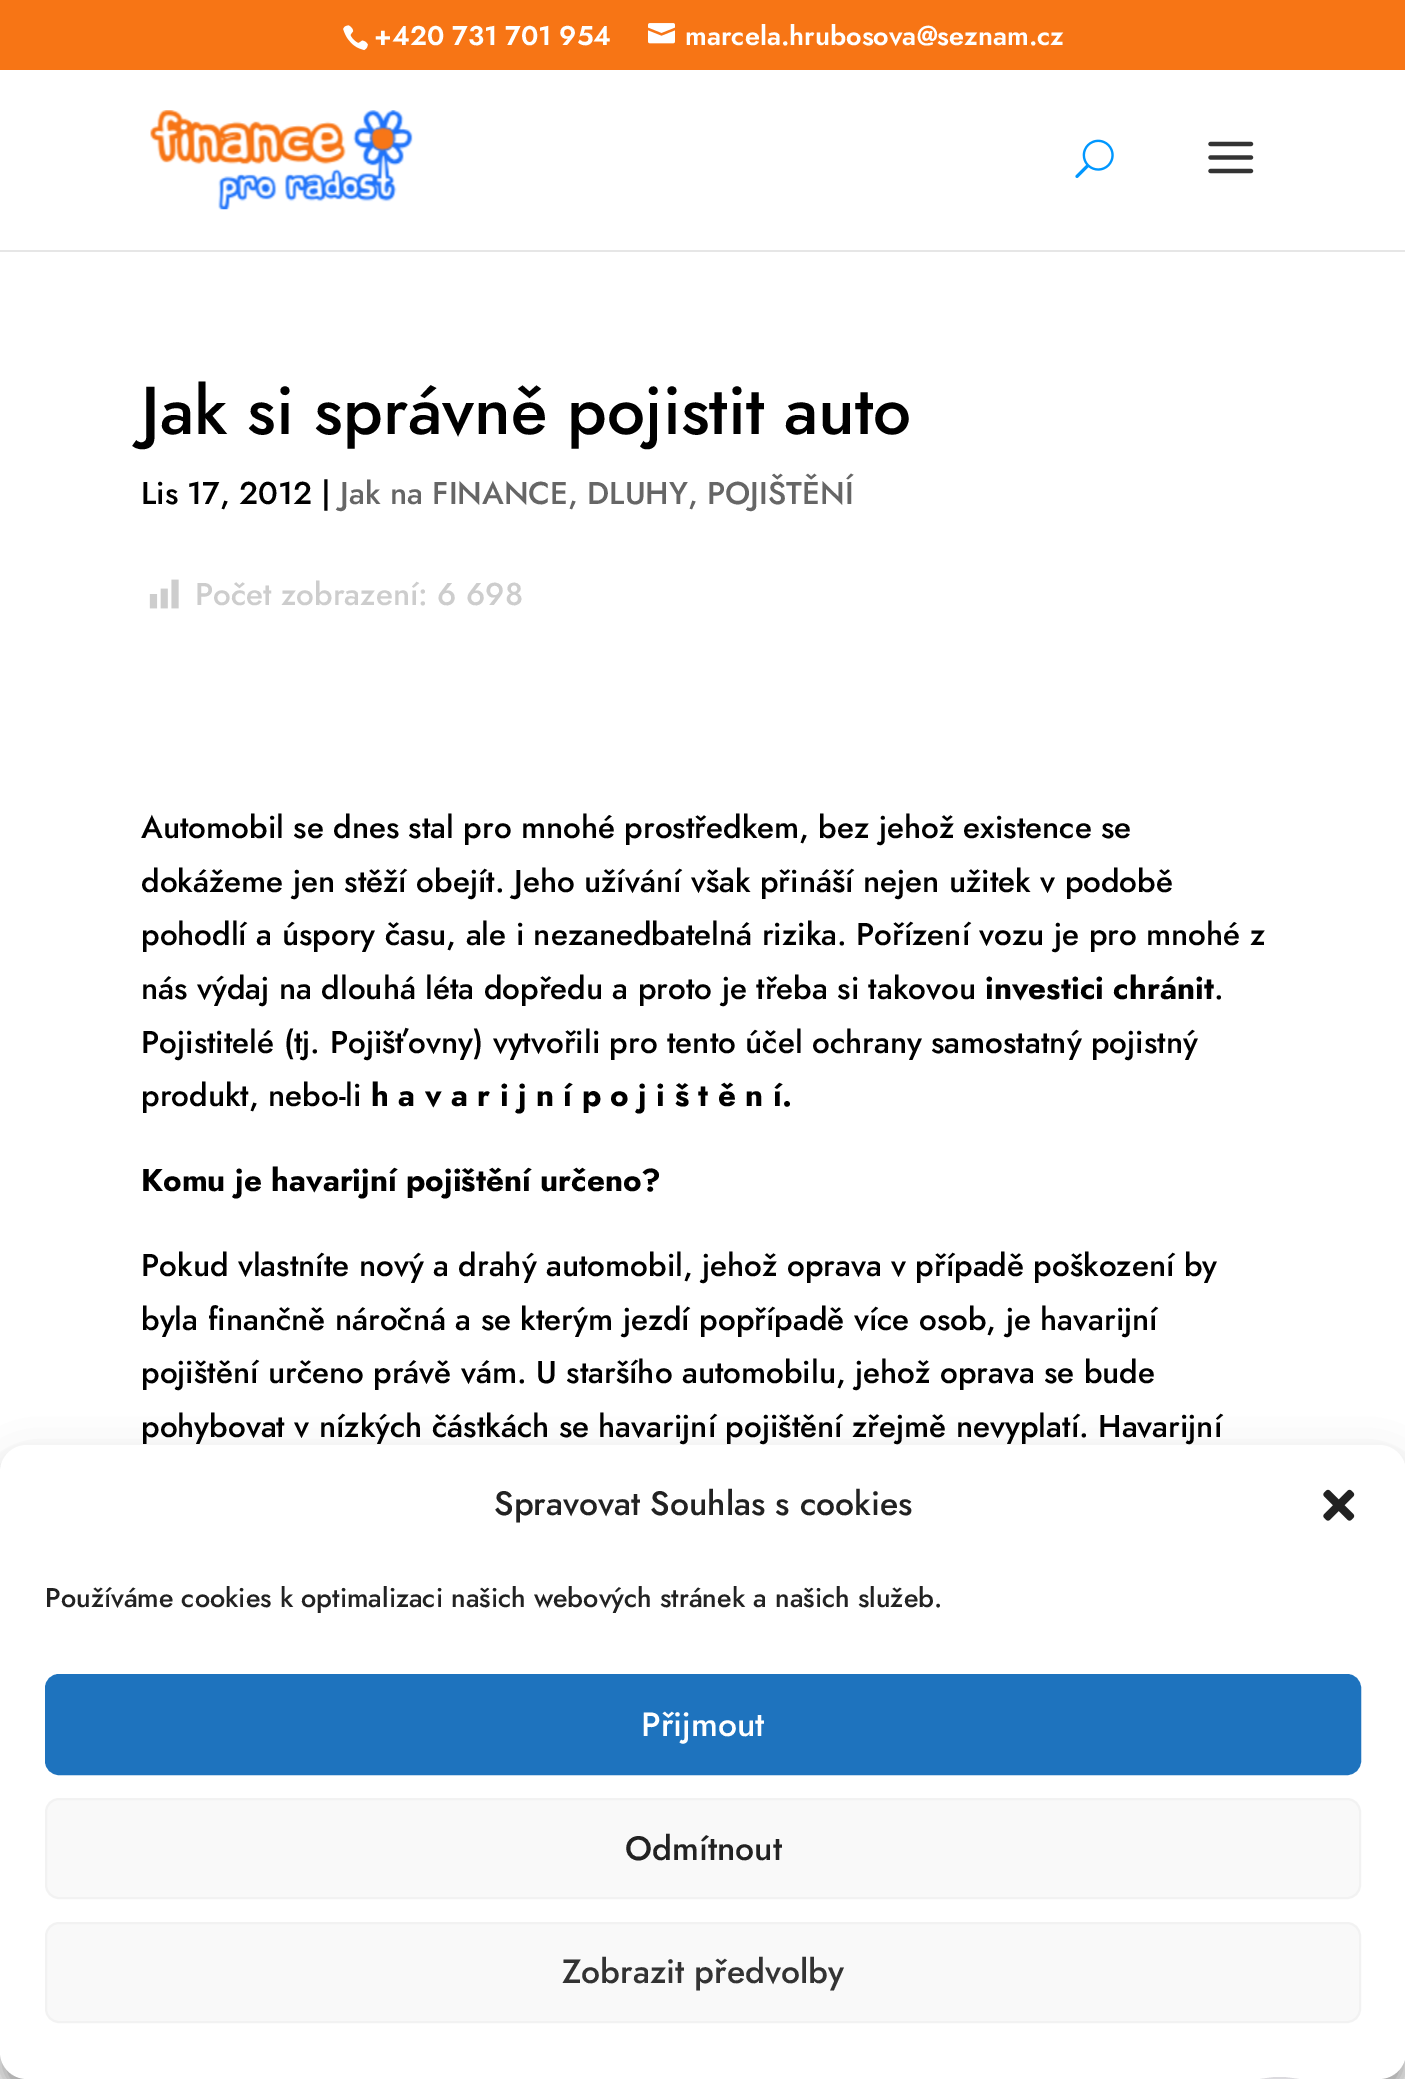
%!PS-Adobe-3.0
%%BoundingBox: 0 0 1405 2079
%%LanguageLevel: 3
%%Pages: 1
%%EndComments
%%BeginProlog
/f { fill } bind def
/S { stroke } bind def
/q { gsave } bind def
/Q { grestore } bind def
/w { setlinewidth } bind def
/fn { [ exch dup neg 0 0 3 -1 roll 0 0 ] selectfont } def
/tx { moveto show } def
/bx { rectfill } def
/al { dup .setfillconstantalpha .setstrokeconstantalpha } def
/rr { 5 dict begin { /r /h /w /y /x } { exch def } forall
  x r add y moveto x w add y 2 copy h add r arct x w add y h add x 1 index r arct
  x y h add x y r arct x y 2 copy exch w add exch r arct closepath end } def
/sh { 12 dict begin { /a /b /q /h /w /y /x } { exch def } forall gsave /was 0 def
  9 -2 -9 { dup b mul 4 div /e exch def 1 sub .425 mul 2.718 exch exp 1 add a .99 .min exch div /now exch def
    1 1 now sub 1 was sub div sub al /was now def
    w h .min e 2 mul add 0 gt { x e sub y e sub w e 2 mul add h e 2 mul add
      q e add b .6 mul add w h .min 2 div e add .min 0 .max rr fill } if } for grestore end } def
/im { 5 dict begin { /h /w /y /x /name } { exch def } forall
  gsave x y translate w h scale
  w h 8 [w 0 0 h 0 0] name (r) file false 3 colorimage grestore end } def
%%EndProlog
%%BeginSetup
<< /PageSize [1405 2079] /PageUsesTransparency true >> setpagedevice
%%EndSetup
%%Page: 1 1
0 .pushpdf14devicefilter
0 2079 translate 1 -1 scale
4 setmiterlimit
1 setgray
0 0 1405 2079 bx
0.969 0.459 0.082 setrgbcolor
0 0 1405 70 bx
(image0.raw) 343 25 25 26 im
/Jost-SemiBold 27 fn
1 setgray
(+420 731 701 954) 374 45 tx
(image1.raw) 648 23 27 21 im
(marcela.hrubosova@seznam.cz) 685 45 tx
0.902 setgray
0 250 1405 2 bx
(image2.raw) 150 110 263 100 im
(image3.raw) 1075 139 39 39 im
(image4.raw) 1208 141 46 33 im
/Jost-Medium 67.5 fn
0 setgray
(Jak si správně pojistit auto) 141 434 tx
/Jost-Medium 31.5 fn
(Lis 17, 2012 |) 141 504 tx
0.4 setgray
(Jak na FINANCE, DLUHY, POJIŠTĚNÍ) 340 504 tx
(image5.raw) 149 579 30 30 im
0.804 setgray
(Počet zobrazení: 6 698) 195 605 tx
0 setgray
(Automobil se dnes stal pro mnohé prostředkem, bez jehož existence se) 141 838 tx
(dokážeme jen stěží obejít. Jeho užívání však přináší nejen užitek v podobě) 141 892 tx
(pohodlí a úspory času, ale i nezanedbatelná rizika. Pořízení vozu je pro mnohé z) 141 945 tx
(nás výdaj na dlouhá léta dopředu a proto je třeba si takovou) 141 999 tx
/Jost-Bold 31.5 fn
(investici chránit) 985 999 tx
/Jost-Medium 31.5 fn
(.) 1214 999 tx
(Pojistitelé \(tj. Pojišťovny\) vytvořili pro tento účel ochrany samostatný pojistný) 141 1053 tx
(produkt, nebo-li) 141 1106 tx
/Jost-Bold 31.5 fn
(h a v a r i j n í p o j i š t ě n í.) 371 1106 tx
(Komu je havarijní pojištění určeno?) 141 1191 tx
/Jost-Medium 31.5 fn
(Pokud vlastníte nový a drahý automobil, jehož oprava v případě poškození by) 141 1276 tx
(byla finančně náročná a se kterým jezdí popřípadě více osob, je havarijní) 141 1330 tx
(pojištění určeno právě vám. U staršího automobilu, jehož oprava se bude) 141 1383 tx
(pohybovat v nízkých částkách se havarijní pojištění zřejmě nevyplatí. Havarijní) 141 1437 tx
0 1458 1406 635 27 7 0.23 sh
0 1467 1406 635 27 22.5 0.19 sh
1 setgray
0 1445 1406 634 27 rr f
/Jost-Medium 33.75 fn
0.133 setgray
(Spravovat Souhlas s cookies) 494 1515 tx
(image6.raw) 1323 1489 32 32 im
/Jost-Medium 27 fn
(Používáme cookies k optimalizaci našich webových stránek a našich služeb.) 45 1607 tx
0.118 0.451 0.745 setrgbcolor
46 1675 1314 99 13 rr q f Q
2 w
S
/Jost-Medium 33.75 fn
1 setgray
(Přijmout) 641 1736 tx
0.976 setgray
46 1799 1314 99 13 rr q f Q
0.949 setgray
S
0.133 setgray
(Odmítnout) 625 1860 tx
0.976 setgray
46 1923 1314 99 13 rr q f Q
0.949 setgray
S
0.2 setgray
(Zobrazit předvolby) 562 1983 tx
0.859 0.855 0.871 setrgbcolor
1187 2078 185 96 92.5 rr S
.poppdf14devicefilter showpage
%%EOF
